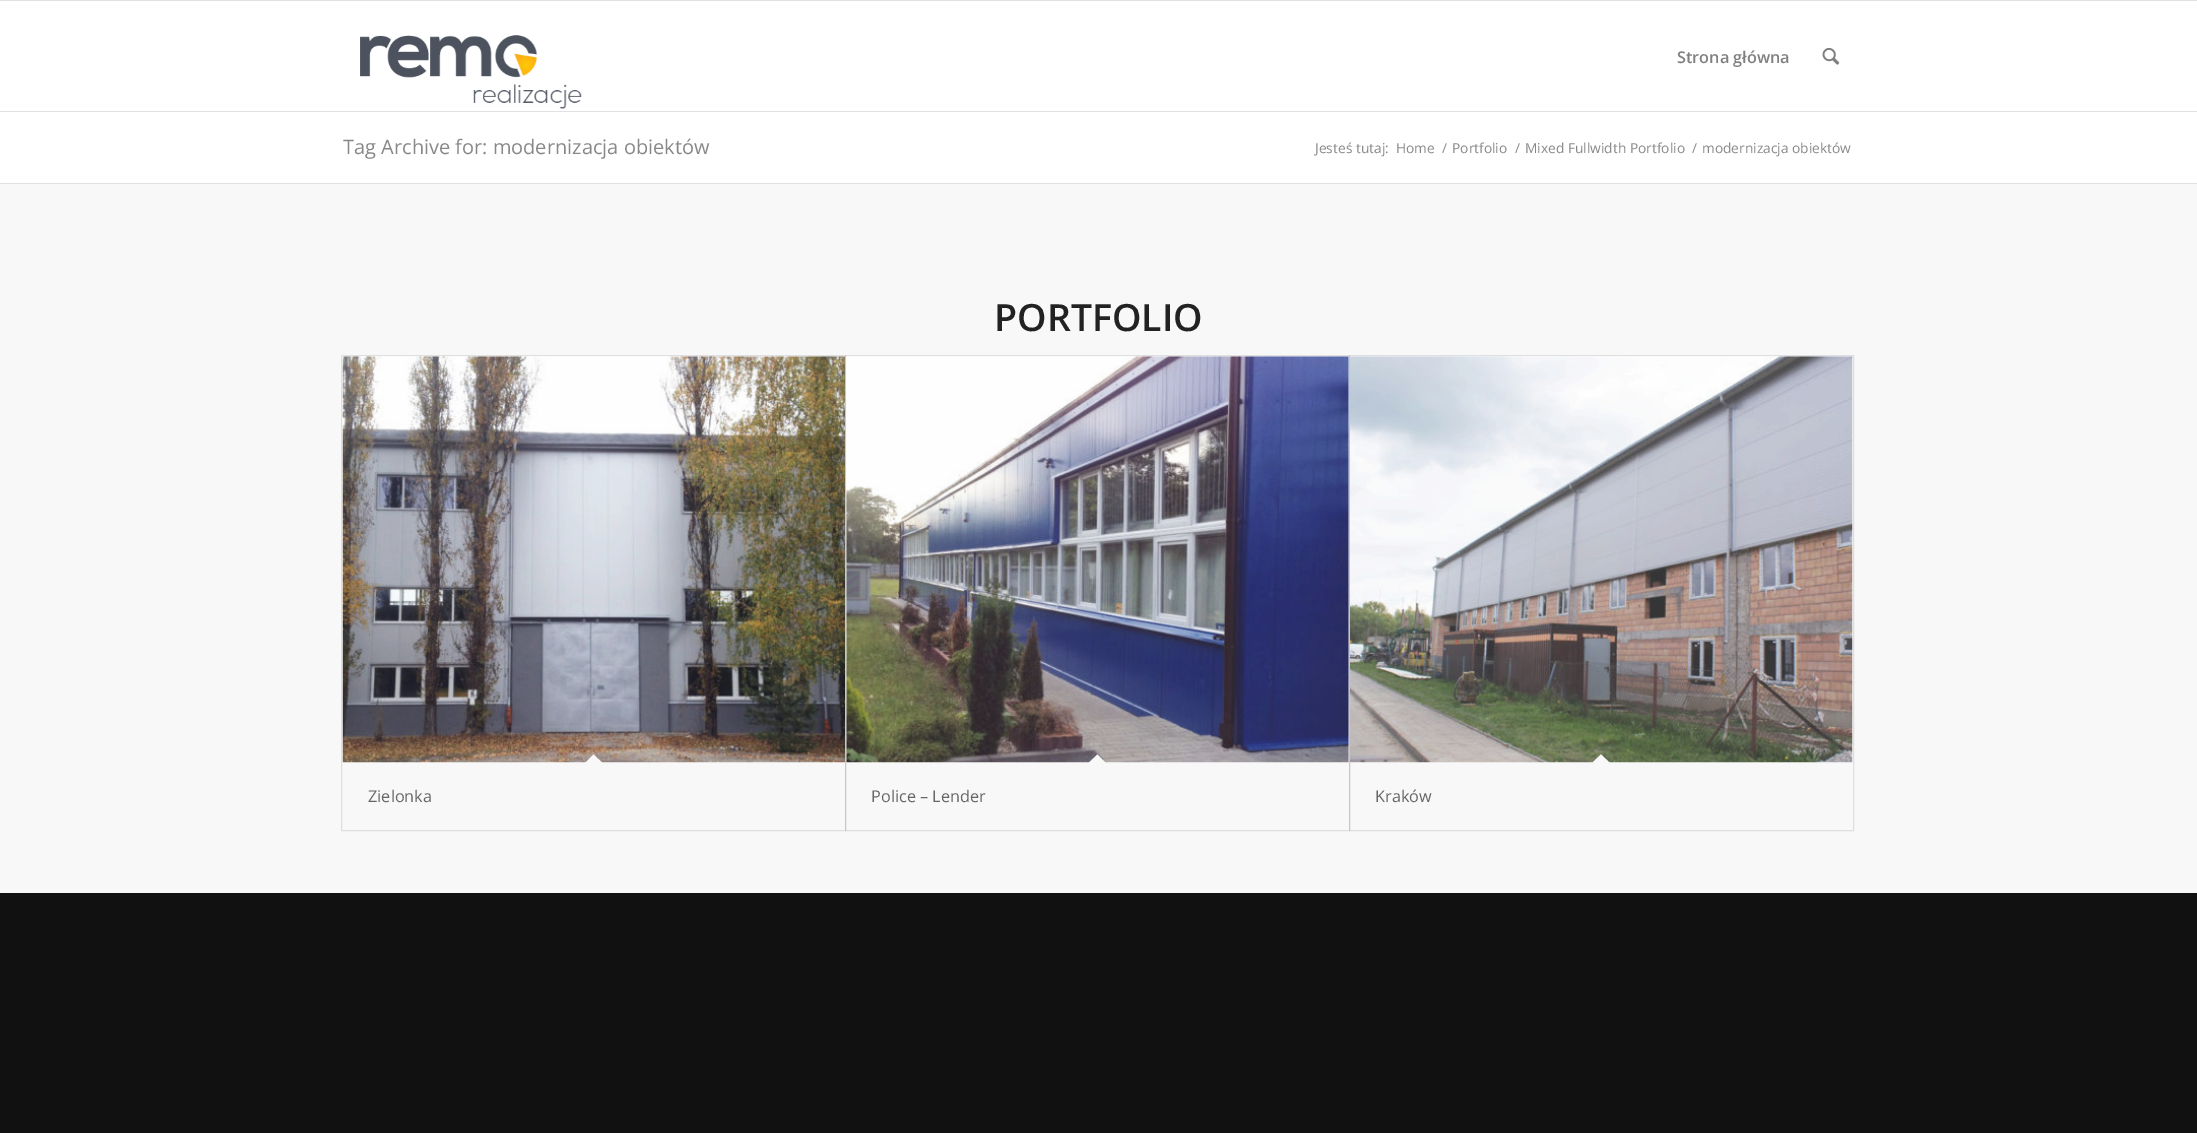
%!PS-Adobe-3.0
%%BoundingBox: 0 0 2197 1133
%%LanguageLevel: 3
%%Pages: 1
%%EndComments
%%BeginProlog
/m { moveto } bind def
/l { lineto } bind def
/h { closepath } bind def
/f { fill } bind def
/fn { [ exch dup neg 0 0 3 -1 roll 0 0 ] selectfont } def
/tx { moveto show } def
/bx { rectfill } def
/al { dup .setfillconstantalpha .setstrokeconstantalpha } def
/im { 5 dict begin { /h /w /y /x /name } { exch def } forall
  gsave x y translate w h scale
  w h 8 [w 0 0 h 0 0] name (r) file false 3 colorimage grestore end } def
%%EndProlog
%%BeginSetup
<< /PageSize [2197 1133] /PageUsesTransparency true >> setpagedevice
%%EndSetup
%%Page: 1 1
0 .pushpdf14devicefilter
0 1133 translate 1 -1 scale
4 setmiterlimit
0.067 setgray
0 0 2197 1133 bx
0.882 setgray
0 0 2197 1 bx
1 setgray
0 1 2197 182 bx
0.882 setgray
0 111 2197 1 bx
(image0.raw) 360 35 222 74 im
/OpenSans-SemiBold 16.25 fn
0.502 setgray
(Strona główna) 1677 63 tx
(image1.raw) 1822 47 18 18 im
/OpenSans-Regular 20 fn
0.533 setgray
(Tag Archive for: modernizacja obiektów) 343 154 tx
/OpenSans-Regular 13.75 fn
(Jesteś tutaj:) 1315 153 tx
(Home) 1396 153 tx
(/) 1442 153 tx
(Portfolio) 1452 153 tx
(/) 1515 153 tx
(Mixed Fullwidth Portfolio) 1525 153 tx
(/) 1692 153 tx
(modernizacja obiektów) 1702 153 tx
0.973 setgray
0 184 2197 709 bx
0.882 setgray
0 183 2197 1 bx
/OpenSans-SemiBold 37.5 fn
0.133 setgray
(PORTFOLIO) 994 331 tx
0.875 setgray
341.5 355.5 504 475 rectstroke
(image2.raw) 342 356 503 407 im
0.973 setgray
593.5 754.5 m 602.5 763 l 593.5 772 l 585 763 l h f
/OpenSans-Regular 16.25 fn
0.4 setgray
(Zielonka) 368 802 tx
0.1 al
0 setgray
845.5 355.5 504 475 rectstroke
1 al
(image3.raw) 846 356 503 407 im
0.973 setgray
1097.5 754.5 m 1106 763 l 1097.5 772 l 1088.5 763 l h f
0.4 setgray
(Police – Lender) 871 802 tx
0.1 al
0 setgray
1349.5 355.5 504 475 rectstroke
1 al
(image4.raw) 1350 356 503 407 im
0.973 setgray
1601 754.5 m 1610 763 l 1601 772 l 1592 763 l h f
0.4 setgray
(Kraków) 1375 802 tx
.poppdf14devicefilter showpage
%%EOF
